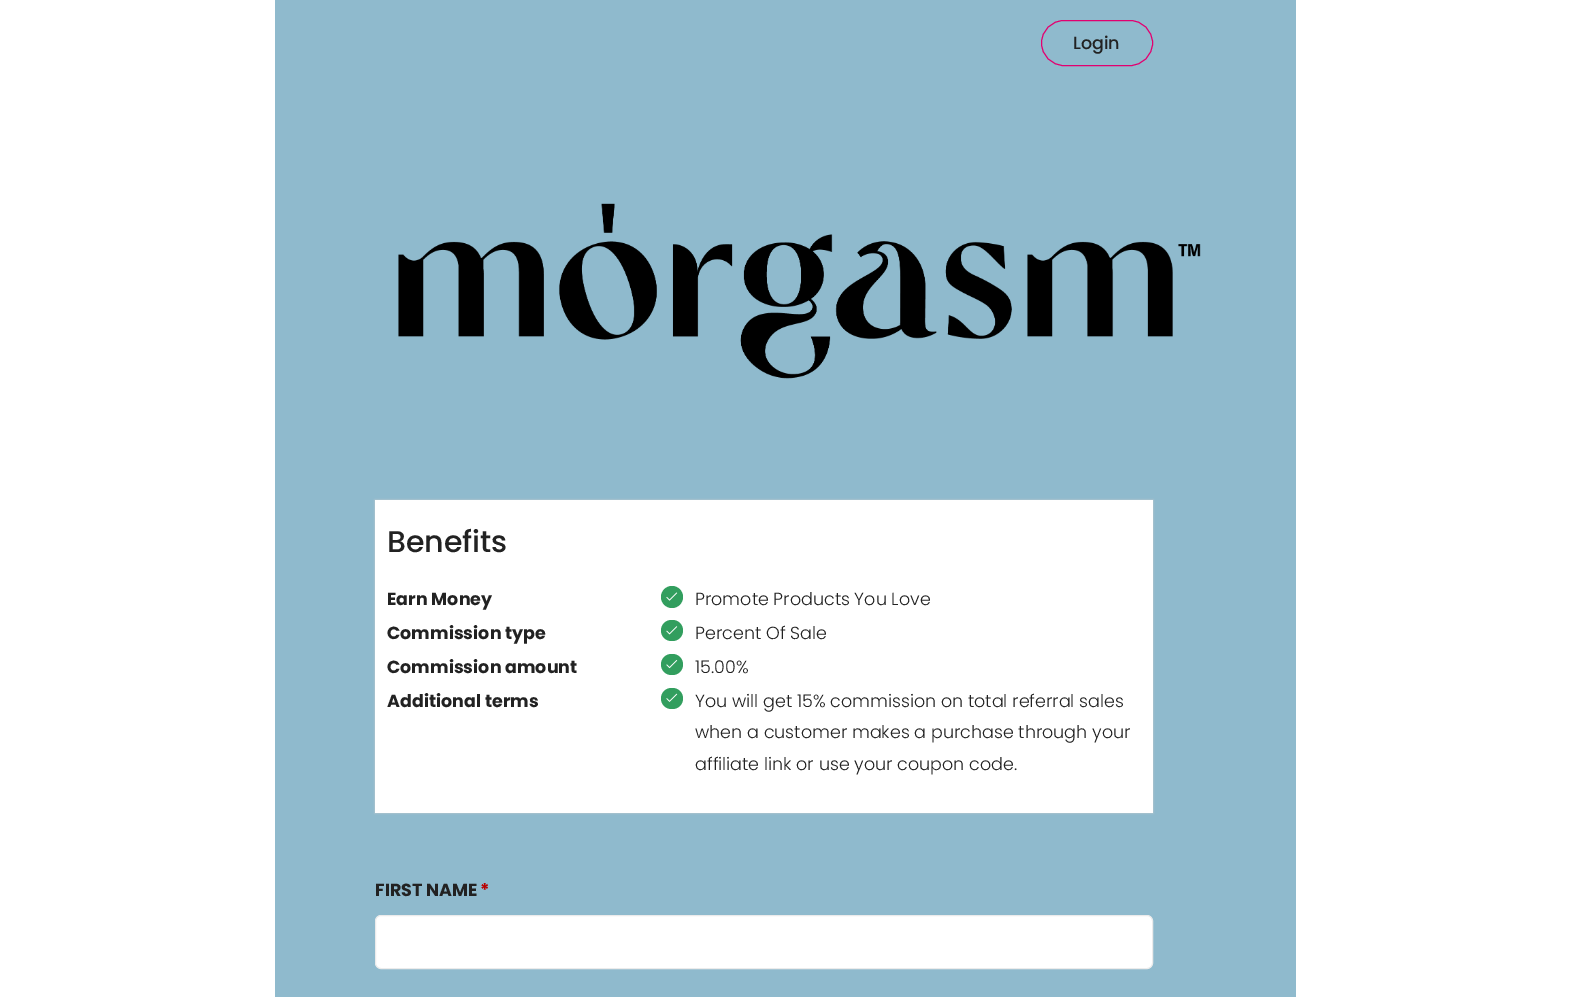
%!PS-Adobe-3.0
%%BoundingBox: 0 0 1571 997
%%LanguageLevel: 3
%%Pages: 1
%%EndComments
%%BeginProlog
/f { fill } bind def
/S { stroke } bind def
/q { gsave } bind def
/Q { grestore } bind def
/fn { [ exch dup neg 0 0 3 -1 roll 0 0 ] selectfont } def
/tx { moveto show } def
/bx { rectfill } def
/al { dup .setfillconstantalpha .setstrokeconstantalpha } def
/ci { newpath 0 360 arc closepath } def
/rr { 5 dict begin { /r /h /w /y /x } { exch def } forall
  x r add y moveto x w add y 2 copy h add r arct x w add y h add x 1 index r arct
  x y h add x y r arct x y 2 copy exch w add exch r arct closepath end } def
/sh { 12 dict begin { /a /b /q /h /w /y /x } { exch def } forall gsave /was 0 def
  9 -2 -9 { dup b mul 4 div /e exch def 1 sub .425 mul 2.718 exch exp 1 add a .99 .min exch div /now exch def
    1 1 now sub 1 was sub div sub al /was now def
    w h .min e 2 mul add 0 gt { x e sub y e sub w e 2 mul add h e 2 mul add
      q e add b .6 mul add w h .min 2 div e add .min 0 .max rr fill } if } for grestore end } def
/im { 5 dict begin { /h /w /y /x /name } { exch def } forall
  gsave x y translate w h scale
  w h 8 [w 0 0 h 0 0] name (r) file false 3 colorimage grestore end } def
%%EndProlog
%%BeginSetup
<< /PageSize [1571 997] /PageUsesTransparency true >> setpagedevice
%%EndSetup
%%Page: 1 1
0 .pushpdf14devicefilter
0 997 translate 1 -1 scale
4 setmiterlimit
1 setgray
0 0 1571 997 bx
0.561 0.729 0.804 setrgbcolor
275 0 1021 997 bx
0.886 0 0.439 setrgbcolor
1041.5 20.5 111 45 22.5 rr S
/Poppins-Medium 17.5 fn
0.133 setgray
(Login) 1073 49 tx
(image0.raw) 398 203 803 176 im
0.8 setgray
375 500 778 313 0 1 1 sh
1 setgray
375 500 778 313 bx
/Poppins-Medium 30 fn
0.133 setgray
(Benefits) 387 552 tx
/Poppins-Bold 17.5 fn
(Earn Money) 387 605 tx
0.196 0.62 0.369 setrgbcolor
672 597 11 ci f
(image1.raw) 666 592 12 9 im
/Poppins-Light 17.5 fn
0.133 setgray
(Promote Products You Love) 695 605 tx
/Poppins-Bold 17.5 fn
(Commission type) 387 639 tx
0.196 0.62 0.369 setrgbcolor
661 620 22 21 10.5 rr f
(image2.raw) 666 626 12 9 im
/Poppins-Light 17.5 fn
0.133 setgray
(Percent Of Sale) 695 639 tx
/Poppins-Bold 17.5 fn
(Commission amount) 387 673 tx
0.196 0.62 0.369 setrgbcolor
661 654 22 21 10.5 rr f
(image3.raw) 666 660 12 9 im
/Poppins-Light 17.5 fn
0.133 setgray
(15.00%) 695 673 tx
/Poppins-Bold 17.5 fn
(Additional terms) 387 707 tx
0.196 0.62 0.369 setrgbcolor
661 688 22 21 10.5 rr f
(image4.raw) 666 693 12 9 im
/Poppins-Light 17.5 fn
0.133 setgray
(You will get 15% commission on total referral sales) 695 707 tx
(when a customer makes a purchase through your) 695 738 tx
(affiliate link or use your coupon code.) 695 770 tx
/Poppins-Bold 17.5 fn
(FIRST NAME) 375 896 tx
0.725 0 0 setrgbcolor
(*) 480 896 tx
1 setgray
375.5 915.5 777 53 5.5 rr q f Q
0.922 setgray
S
.poppdf14devicefilter showpage
%%EOF
